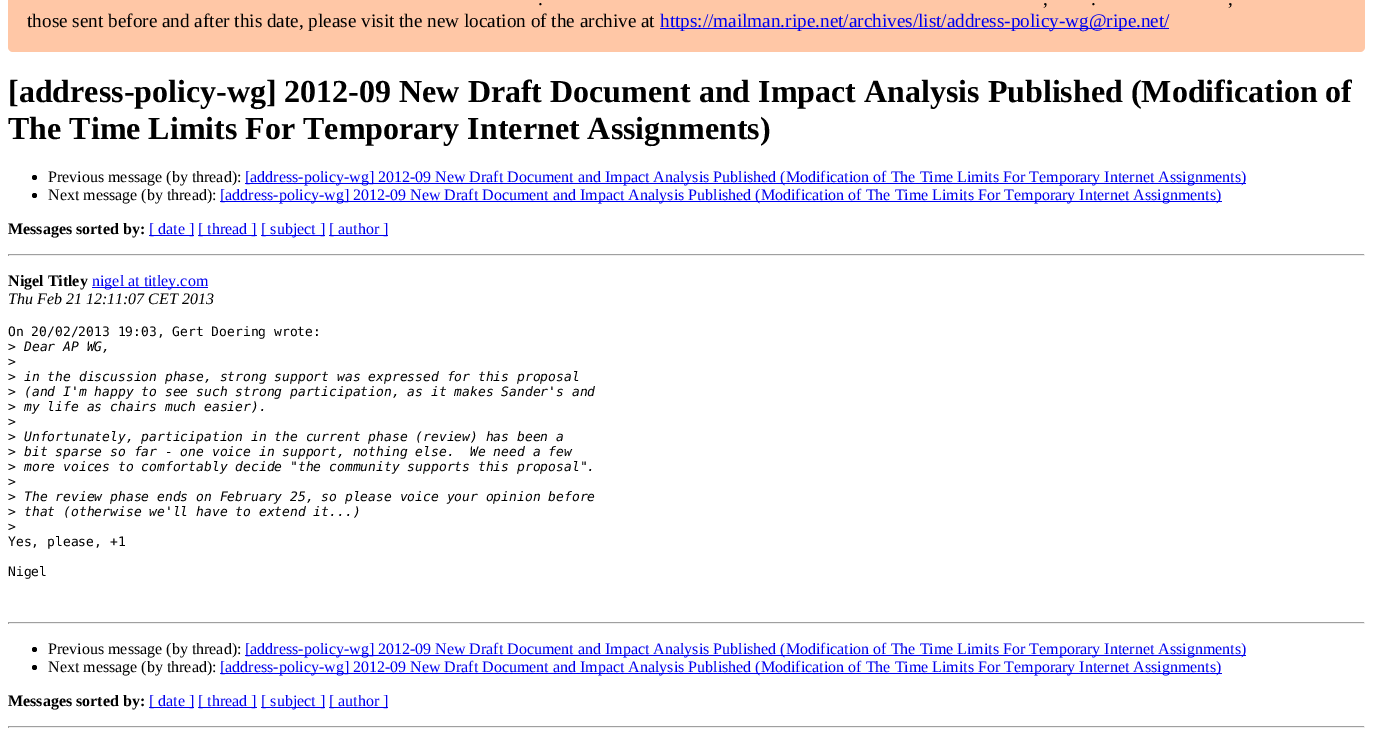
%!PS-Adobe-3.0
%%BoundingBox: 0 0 1373 748
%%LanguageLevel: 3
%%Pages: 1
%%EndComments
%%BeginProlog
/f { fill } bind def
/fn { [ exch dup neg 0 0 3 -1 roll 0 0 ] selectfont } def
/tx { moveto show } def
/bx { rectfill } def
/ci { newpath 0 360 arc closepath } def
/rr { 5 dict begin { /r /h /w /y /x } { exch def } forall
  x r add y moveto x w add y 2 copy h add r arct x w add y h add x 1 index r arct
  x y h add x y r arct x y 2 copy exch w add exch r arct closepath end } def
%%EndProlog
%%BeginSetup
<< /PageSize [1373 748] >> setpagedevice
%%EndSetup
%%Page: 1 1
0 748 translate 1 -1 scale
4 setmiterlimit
1 setgray
0 0 1373 748 bx
1 0.78 0.651 setrgbcolor
8 -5 1357 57 5 rr f
/LiberationSerif-Regular 19.2 fn
0 setgray
(.) 538 5 tx
(,) 1043 5 tx
(.) 1091 5 tx
(,) 1228 5 tx
(those sent before and after this date, please visit the new location of the archive at) 27 27 tx
0 0 0.933 setrgbcolor
660 28 509 1 bx
(https://mailman.ripe.net/archives/list/address-policy-wg@ripe.net/) 660 27 tx
/LiberationSerif-Bold 32 fn
0 setgray
([address-policy-wg] 2012-09 New Draft Document and Impact Analysis Published \(Modification of) 8 102 tx
(The Time Limits For Temporary Internet Assignments\)) 8 139 tx
34.5 177.5 2.5 ci f
/LiberationSerif-Regular 16 fn
(Previous message \(by thread\):) 48 182 tx
0 0 0.933 setrgbcolor
245 183 1001 1 bx
([address-policy-wg] 2012-09 New Draft Document and Impact Analysis Published \(Modification of The Time Limits For Temporary Internet Assignments\)) 245 182 tx
0 setgray
34.5 195.5 2.5 ci f
(Next message \(by thread\):) 48 200 tx
0 0 0.933 setrgbcolor
220 201 1002 1 bx
([address-policy-wg] 2012-09 New Draft Document and Impact Analysis Published \(Modification of The Time Limits For Temporary Internet Assignments\)) 220 200 tx
/LiberationSerif-Bold 16 fn
0 setgray
(Messages sorted by:) 8 234 tx
0 0 0.933 setrgbcolor
149 235 45 1 bx
/LiberationSerif-Regular 16 fn
([ date ]) 149 234 tx
198 235 59 1 bx
([ thread ]) 198 234 tx
261 235 64 1 bx
([ subject ]) 261 234 tx
329 235 59 1 bx
([ author ]) 329 234 tx
0.624 setgray
8 254 1357 1 bx
0.933 setgray
1364 254 1 2 bx
8 255 1357 1 bx
0.624 setgray
8 254 1 2 bx
/LiberationSerif-Bold 16 fn
0 setgray
(Nigel Titley) 8 286 tx
0 0 0.933 setrgbcolor
92 287 116 1 bx
/LiberationSerif-Regular 16 fn
(nigel at titley.com) 92 286 tx
/LiberationSerif-Italic 16 fn
0 setgray
(Thu Feb 21 12:11:07 CET 2013) 8 304 tx
/DejaVuSansMono-Regular 13 fn
(On 20/02/2013 19:03, Gert Doering wrote:) 8 336 tx
(>) 8 351 tx
/DejaVuSansMono-Italic 13 fn
(Dear AP WG,) 24 351 tx
/DejaVuSansMono-Regular 13 fn
(>) 8 366 tx
(>) 8 381 tx
/DejaVuSansMono-Italic 13 fn
(in the discussion phase, strong support was expressed for this proposal) 24 381 tx
/DejaVuSansMono-Regular 13 fn
(>) 8 396 tx
/DejaVuSansMono-Italic 13 fn
(\(and I'm happy to see such strong participation, as it makes Sander's and) 24 396 tx
/DejaVuSansMono-Regular 13 fn
(>) 8 411 tx
/DejaVuSansMono-Italic 13 fn
(my life as chairs much easier\).) 24 411 tx
/DejaVuSansMono-Regular 13 fn
(>) 8 426 tx
(>) 8 441 tx
/DejaVuSansMono-Italic 13 fn
(Unfortunately, participation in the current phase \(review\) has been a) 24 441 tx
/DejaVuSansMono-Regular 13 fn
(>) 8 456 tx
/DejaVuSansMono-Italic 13 fn
(bit sparse so far - one voice in support, nothing else.  We need a few) 24 456 tx
/DejaVuSansMono-Regular 13 fn
(>) 8 471 tx
/DejaVuSansMono-Italic 13 fn
(more voices to comfortably decide "the community supports this proposal".) 24 471 tx
/DejaVuSansMono-Regular 13 fn
(>) 8 486 tx
(>) 8 501 tx
/DejaVuSansMono-Italic 13 fn
(The review phase ends on February 25, so please voice your opinion before) 24 501 tx
/DejaVuSansMono-Regular 13 fn
(>) 8 516 tx
/DejaVuSansMono-Italic 13 fn
(that \(otherwise we'll have to extend it...\)) 24 516 tx
/DejaVuSansMono-Regular 13 fn
(>) 8 531 tx
(Yes, please, +1) 8 546 tx
(Nigel) 8 576 tx
0.624 setgray
8 622 1357 1 bx
0.933 setgray
1364 622 1 2 bx
8 623 1357 1 bx
0.624 setgray
8 622 1 2 bx
0 setgray
34.5 649.5 2.5 ci f
/LiberationSerif-Regular 16 fn
(Previous message \(by thread\):) 48 654 tx
0 0 0.933 setrgbcolor
245 655 1001 1 bx
([address-policy-wg] 2012-09 New Draft Document and Impact Analysis Published \(Modification of The Time Limits For Temporary Internet Assignments\)) 245 654 tx
0 setgray
34.5 667.5 2.5 ci f
(Next message \(by thread\):) 48 672 tx
0 0 0.933 setrgbcolor
220 673 1002 1 bx
([address-policy-wg] 2012-09 New Draft Document and Impact Analysis Published \(Modification of The Time Limits For Temporary Internet Assignments\)) 220 672 tx
/LiberationSerif-Bold 16 fn
0 setgray
(Messages sorted by:) 8 706 tx
0 0 0.933 setrgbcolor
149 707 45 1 bx
/LiberationSerif-Regular 16 fn
([ date ]) 149 706 tx
198 707 59 1 bx
([ thread ]) 198 706 tx
261 707 64 1 bx
([ subject ]) 261 706 tx
329 707 59 1 bx
([ author ]) 329 706 tx
0.624 setgray
8 726 1357 1 bx
0.933 setgray
1364 726 1 2 bx
8 727 1357 1 bx
0.624 setgray
8 726 1 2 bx
showpage
%%EOF
